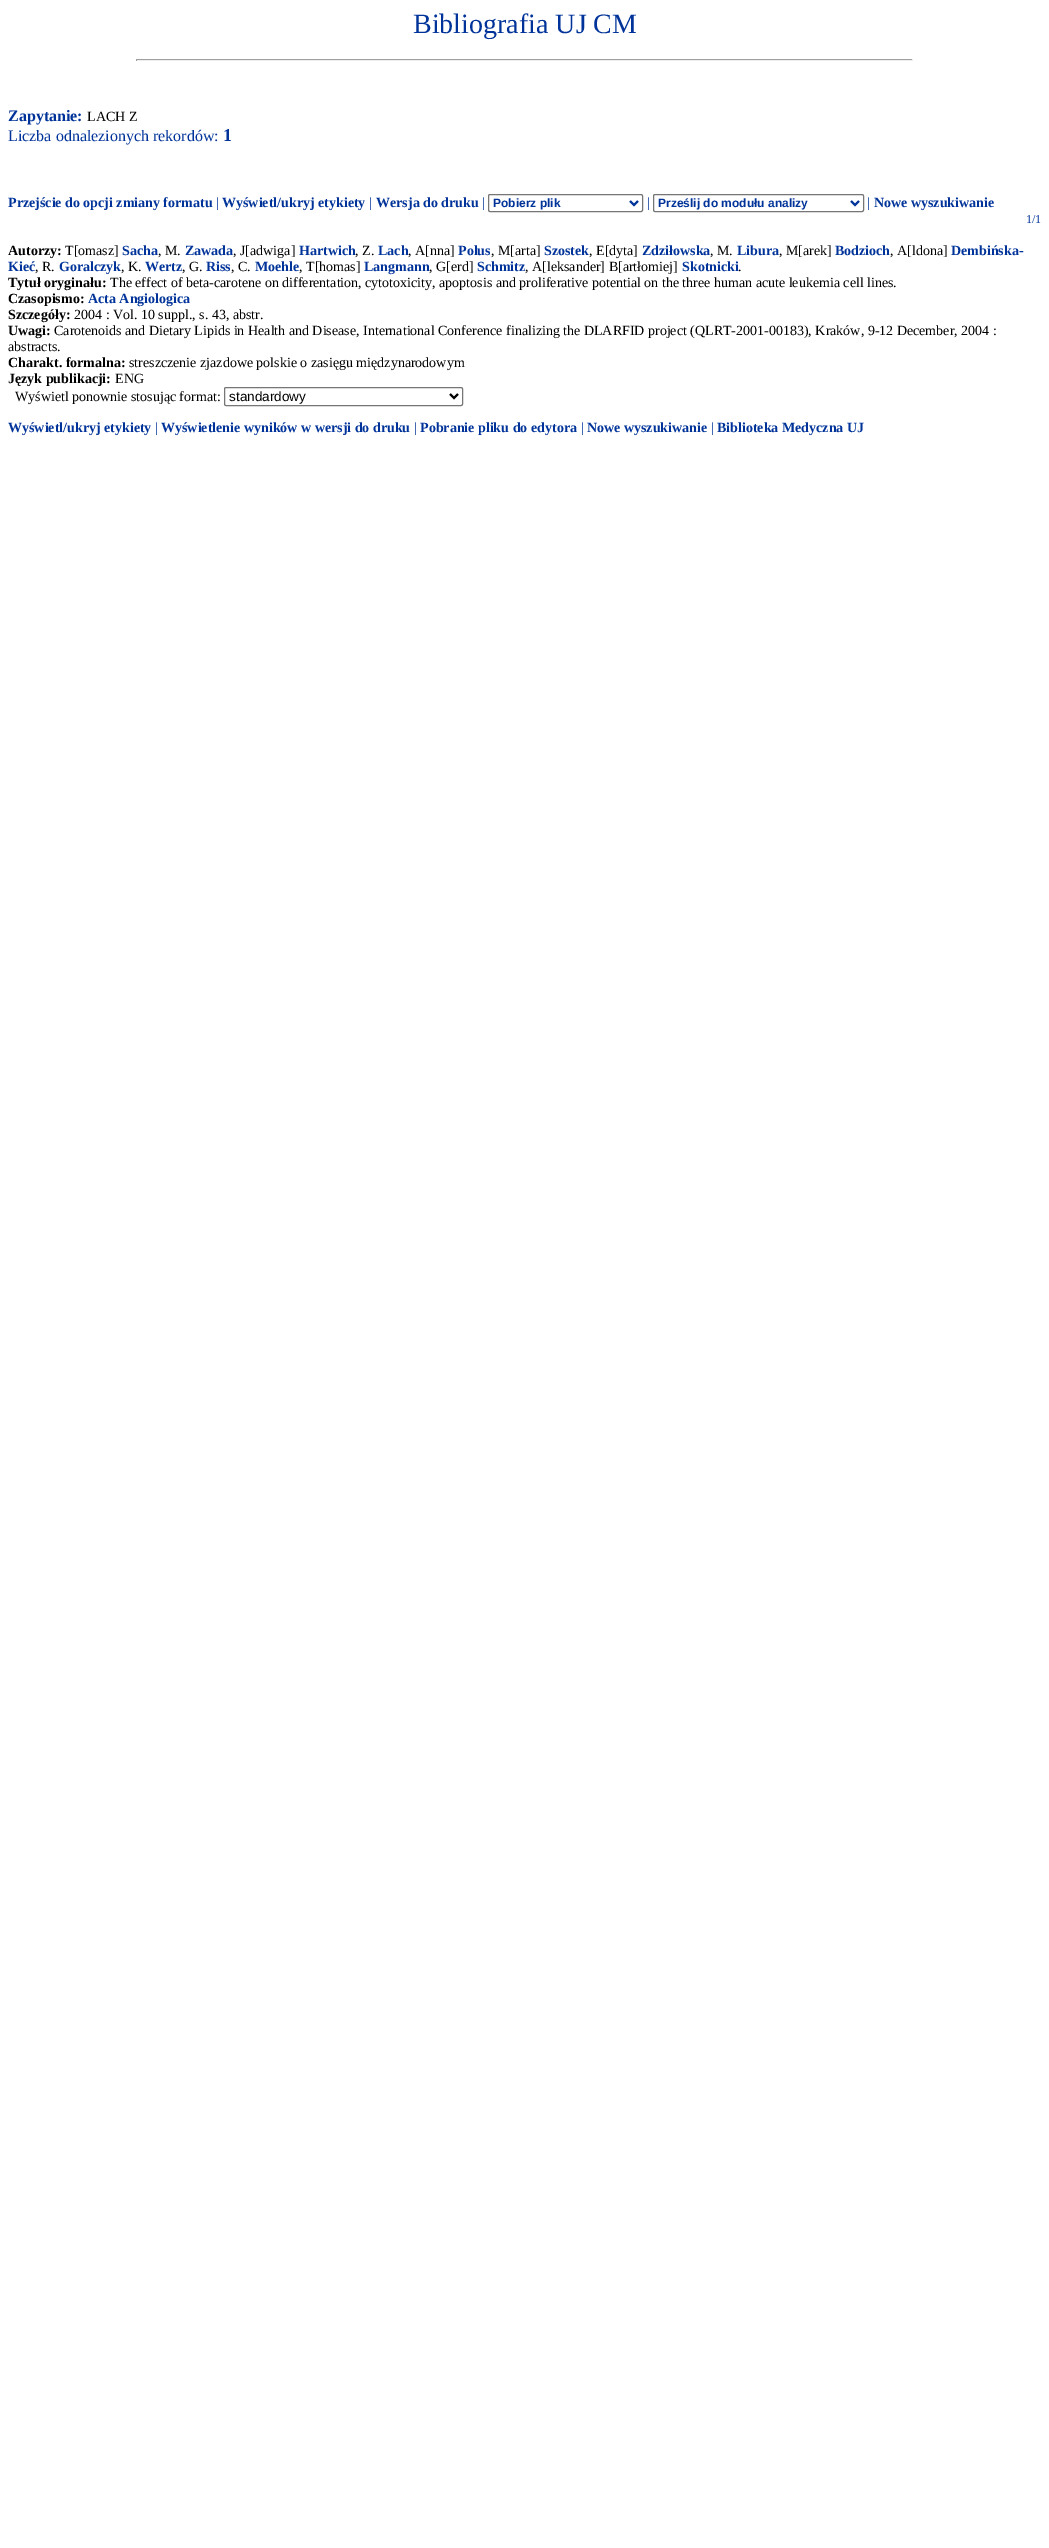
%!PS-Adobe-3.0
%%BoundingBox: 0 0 1049 2548
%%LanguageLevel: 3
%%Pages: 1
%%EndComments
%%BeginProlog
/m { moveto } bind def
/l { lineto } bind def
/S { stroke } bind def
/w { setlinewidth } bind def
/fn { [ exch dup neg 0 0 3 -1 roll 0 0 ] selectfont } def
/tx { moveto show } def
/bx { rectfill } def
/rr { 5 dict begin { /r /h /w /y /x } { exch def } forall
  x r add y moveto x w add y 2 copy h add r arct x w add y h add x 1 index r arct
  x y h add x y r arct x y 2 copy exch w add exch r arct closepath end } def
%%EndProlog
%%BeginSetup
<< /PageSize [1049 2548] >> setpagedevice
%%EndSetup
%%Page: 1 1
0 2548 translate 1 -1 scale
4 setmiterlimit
1 setgray
0 0 1049 2548 bx
/LiberationSerif-Regular 28 fn
0 0.2 0.6 setrgbcolor
(Bibliografia UJ CM) 413 33 tx
0.624 setgray
136 59 777 1 bx
0.933 setgray
912 59 1 2 bx
136 60 777 1 bx
0.624 setgray
136 59 1 2 bx
/LiberationSerif-Bold 16 fn
0 0.2 0.6 setrgbcolor
(Zapytanie:) 8 121 tx
/LiberationSerif-Regular 14 fn
0 setgray
(LACH Z) 87 121 tx
/LiberationSerif-Regular 16 fn
0 0.2 0.6 setrgbcolor
(Liczba odnalezionych rekordów:) 8 141 tx
/LiberationSerif-Bold 18 fn
(1) 223 141 tx
/LiberationSerif-Bold 14 fn
(Przejście do opcji zmiany formatu) 8 207 tx
/LiberationSerif-Regular 14 fn
(|) 216 207 tx
/LiberationSerif-Bold 14 fn
(Wyświetl/ukryj etykiety) 222 207 tx
/LiberationSerif-Regular 14 fn
(|) 369 207 tx
/LiberationSerif-Bold 14 fn
(Wersja do druku) 376 207 tx
/LiberationSerif-Regular 14 fn
(|) 482 207 tx
0.463 setgray
488.5 194.5 154 17 1.5 rr S
0 0.2 0.6 setrgbcolor
2 w
630 201 m 634 205 l 638 201 l S
/LiberationSans-Bold 12 fn
(Pobierz plik) 493 207 tx
/LiberationSerif-Regular 14 fn
(|) 647 207 tx
0.463 setgray
1 w
653.5 194.5 210 17 1.5 rr S
0 0.2 0.6 setrgbcolor
2 w
851 201 m 855 205 l 859 201 l S
/LiberationSans-Bold 12 fn
(Prześlij do modułu analizy) 658 207 tx
/LiberationSerif-Regular 14 fn
(|) 867 207 tx
/LiberationSerif-Bold 14 fn
(Nowe wyszukiwanie) 874 207 tx
/LiberationSerif-Regular 12 fn
(1/1) 1026 223 tx
/LiberationSerif-Bold 14 fn
0 setgray
(Autorzy:) 8 255 tx
/LiberationSerif-Regular 14 fn
(T[omasz]) 65 255 tx
/LiberationSerif-Bold 14 fn
0 0.2 0.6 setrgbcolor
(Sacha) 122 255 tx
/LiberationSerif-Regular 14 fn
0 setgray
(, M.) 158 255 tx
/LiberationSerif-Bold 14 fn
0 0.2 0.6 setrgbcolor
(Zawada) 185 255 tx
/LiberationSerif-Regular 14 fn
0 setgray
(, J[adwiga]) 233 255 tx
/LiberationSerif-Bold 14 fn
0 0.2 0.6 setrgbcolor
(Hartwich) 299 255 tx
/LiberationSerif-Regular 14 fn
0 setgray
(, Z.) 355 255 tx
/LiberationSerif-Bold 14 fn
0 0.2 0.6 setrgbcolor
(Lach) 378 255 tx
/LiberationSerif-Regular 14 fn
0 setgray
(, A[nna]) 408 255 tx
/LiberationSerif-Bold 14 fn
0 0.2 0.6 setrgbcolor
(Polus) 458 255 tx
/LiberationSerif-Regular 14 fn
0 setgray
(, M[arta]) 491 255 tx
/LiberationSerif-Bold 14 fn
0 0.2 0.6 setrgbcolor
(Szostek) 544 255 tx
/LiberationSerif-Regular 14 fn
0 setgray
(, E[dyta]) 589 255 tx
/LiberationSerif-Bold 14 fn
0 0.2 0.6 setrgbcolor
(Zdziłowska) 642 255 tx
/LiberationSerif-Regular 14 fn
0 setgray
(, M.) 710 255 tx
/LiberationSerif-Bold 14 fn
0 0.2 0.6 setrgbcolor
(Libura) 737 255 tx
/LiberationSerif-Regular 14 fn
0 setgray
(, M[arek]) 779 255 tx
/LiberationSerif-Bold 14 fn
0 0.2 0.6 setrgbcolor
(Bodzioch) 835 255 tx
/LiberationSerif-Regular 14 fn
0 setgray
(, A[ldona]) 890 255 tx
/LiberationSerif-Bold 14 fn
0 0.2 0.6 setrgbcolor
(Dembińska-) 951 255 tx
(Kieć) 8 271 tx
/LiberationSerif-Regular 14 fn
0 setgray
(, R.) 35 271 tx
/LiberationSerif-Bold 14 fn
0 0.2 0.6 setrgbcolor
(Goralczyk) 59 271 tx
/LiberationSerif-Regular 14 fn
0 setgray
(, K.) 121 271 tx
/LiberationSerif-Bold 14 fn
0 0.2 0.6 setrgbcolor
(Wertz) 145 271 tx
/LiberationSerif-Regular 14 fn
0 setgray
(, G.) 182 271 tx
/LiberationSerif-Bold 14 fn
0 0.2 0.6 setrgbcolor
(Riss) 206 271 tx
/LiberationSerif-Regular 14 fn
0 setgray
(, C.) 231 271 tx
/LiberationSerif-Bold 14 fn
0 0.2 0.6 setrgbcolor
(Moehle) 255 271 tx
/LiberationSerif-Regular 14 fn
0 setgray
(, T[homas]) 299 271 tx
/LiberationSerif-Bold 14 fn
0 0.2 0.6 setrgbcolor
(Langmann) 364 271 tx
/LiberationSerif-Regular 14 fn
0 setgray
(, G[erd]) 429 271 tx
/LiberationSerif-Bold 14 fn
0 0.2 0.6 setrgbcolor
(Schmitz) 477 271 tx
/LiberationSerif-Regular 14 fn
0 setgray
(, A[leksander] B[artłomiej]) 525 271 tx
/LiberationSerif-Bold 14 fn
0 0.2 0.6 setrgbcolor
(Skotnicki) 682 271 tx
/LiberationSerif-Regular 14 fn
0 setgray
(.) 738 271 tx
/LiberationSerif-Bold 14 fn
(Tytuł oryginału:) 8 287 tx
/LiberationSerif-Regular 14 fn
(The effect of beta-carotene on differentation, cytotoxicity, apoptosis and proliferative potential on the three human acute leukemia cell lines.) 110 287 tx
/LiberationSerif-Bold 14 fn
(Czasopismo:) 8 303 tx
0 0.2 0.6 setrgbcolor
(Acta Angiologica) 88 303 tx
0 setgray
(Szczegóły:) 8 319 tx
/LiberationSerif-Regular 14 fn
(2004 : Vol. 10 suppl., s. 43, abstr.) 74 319 tx
/LiberationSerif-Bold 14 fn
(Uwagi:) 8 335 tx
/LiberationSerif-Regular 14 fn
(Carotenoids and Dietary Lipids in Health and Disease, International Conference finalizing the DLARFID project \(QLRT-2001-00183\), Kraków, 9-12 December, 2004 :) 54 335 tx
(abstracts.) 8 351 tx
/LiberationSerif-Bold 14 fn
(Charakt. formalna:) 8 367 tx
/LiberationSerif-Regular 14 fn
(streszczenie zjazdowe polskie o zasięgu międzynarodowym) 129 367 tx
/LiberationSerif-Bold 14 fn
(Język publikacji:) 8 383 tx
/LiberationSerif-Regular 14 fn
(ENG) 115 383 tx
(Wyświetl ponownie stosując format:) 15 401 tx
0.463 setgray
1 w
224.5 387.5 238 18 1.5 rr S
0 setgray
2 w
450 394 m 454 398 l 458 394 l S
/LiberationSans-Regular 13.5 fn
(standardowy) 229 401 tx
/LiberationSerif-Bold 14 fn
0 0.2 0.6 setrgbcolor
(Wyświetl/ukryj etykiety) 8 432 tx
/LiberationSerif-Regular 14 fn
(|) 155 432 tx
/LiberationSerif-Bold 14 fn
(Wyświetlenie wyników w wersji do druku) 161 432 tx
/LiberationSerif-Regular 14 fn
(|) 414 432 tx
/LiberationSerif-Bold 14 fn
(Pobranie pliku do edytora) 420 432 tx
/LiberationSerif-Regular 14 fn
(|) 581 432 tx
/LiberationSerif-Bold 14 fn
(Nowe wyszukiwanie) 587 432 tx
/LiberationSerif-Regular 14 fn
(|) 711 432 tx
/LiberationSerif-Bold 14 fn
(Biblioteka Medyczna UJ) 717 432 tx
showpage
%%EOF
